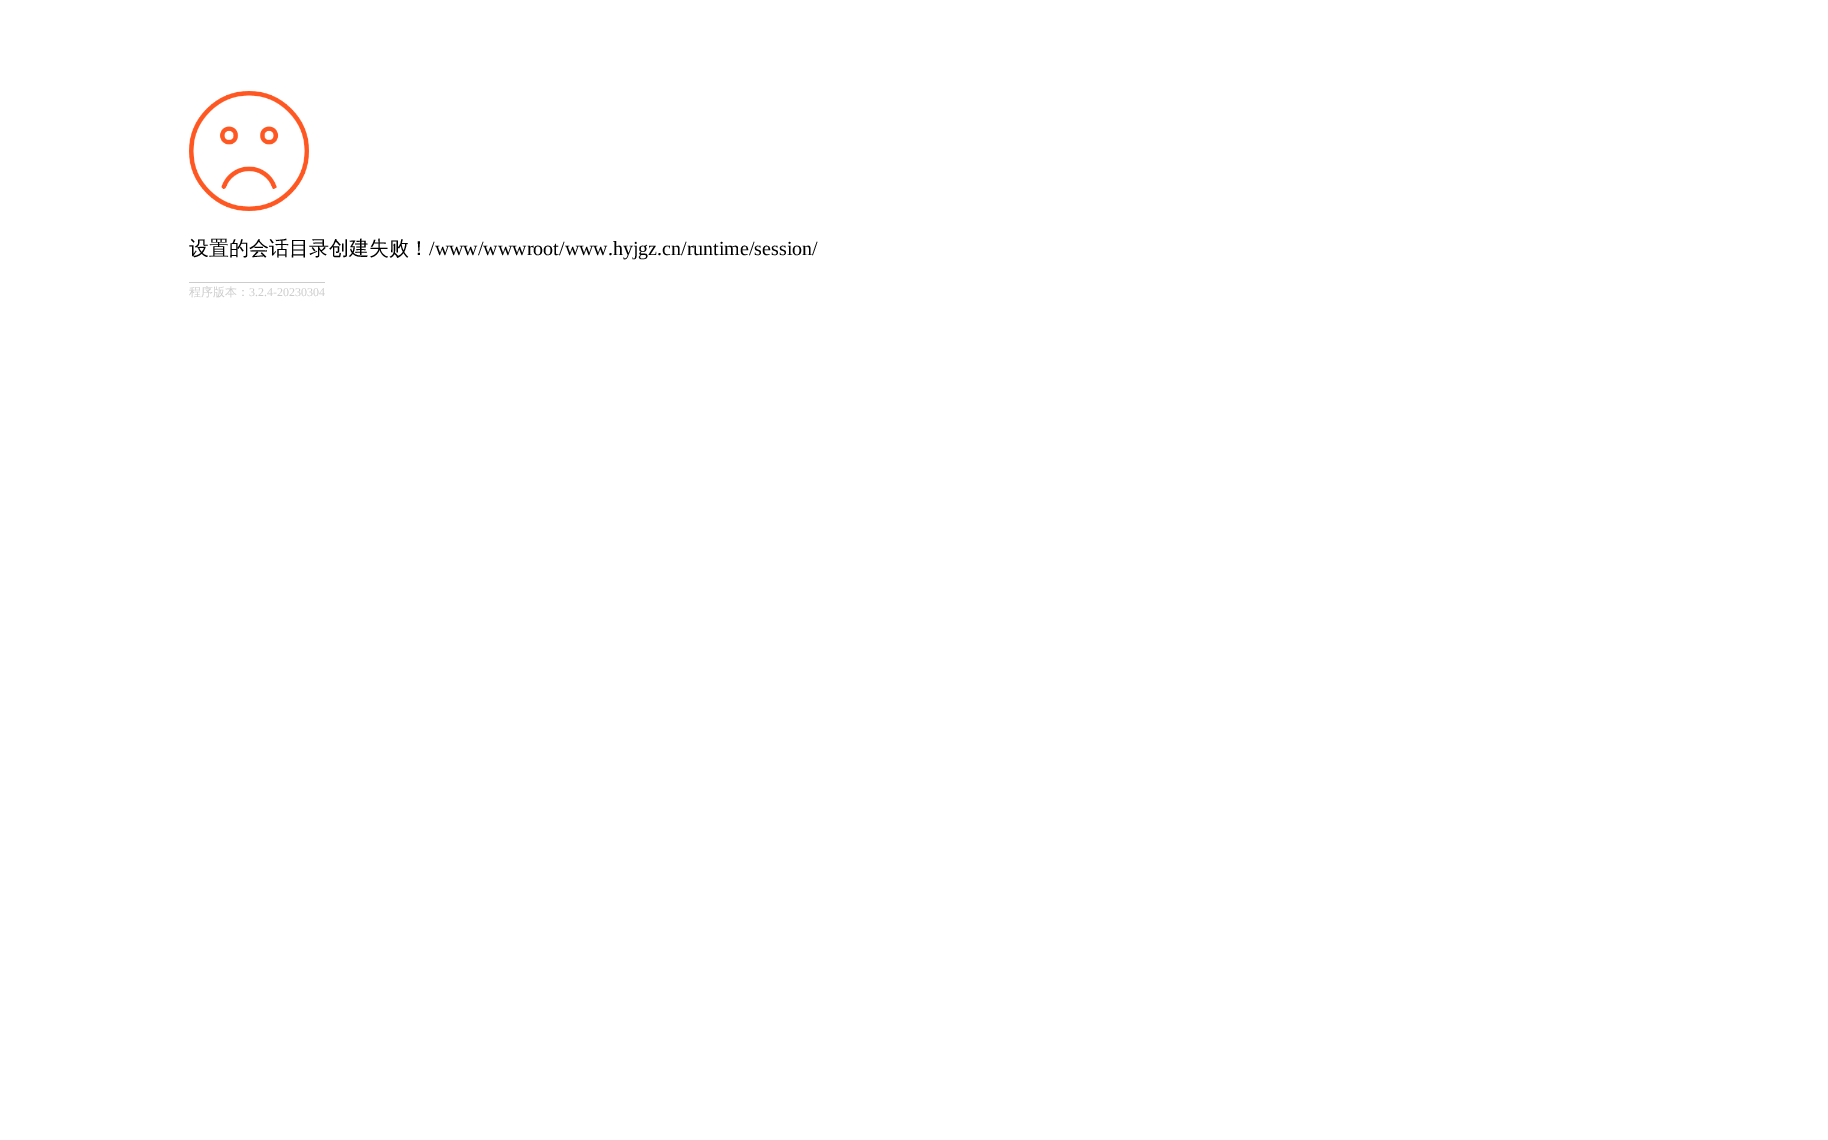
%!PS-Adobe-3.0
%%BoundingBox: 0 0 1828 1140
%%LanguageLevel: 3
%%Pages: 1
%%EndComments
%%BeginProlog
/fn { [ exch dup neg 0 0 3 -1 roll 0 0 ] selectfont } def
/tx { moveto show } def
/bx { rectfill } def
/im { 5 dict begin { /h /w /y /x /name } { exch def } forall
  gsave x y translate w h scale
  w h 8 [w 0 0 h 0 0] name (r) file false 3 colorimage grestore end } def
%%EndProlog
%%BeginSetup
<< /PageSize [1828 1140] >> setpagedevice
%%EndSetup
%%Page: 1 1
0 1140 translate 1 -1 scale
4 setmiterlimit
1 setgray
0 0 1828 1140 bx
(image0.raw) 189 91 120 120 im
/WenQuanYiZenHei-Medium 20 fn
0 setgray
(设置的会话目录创建失败！) 189 255 tx
/LiberationSerif-Regular 20 fn
(/www/wwwroot/www.hyjgz.cn/runtime/session/) 429 255 tx
/WenQuanYiZenHei-Medium 12 fn
0.8 setgray
(程序版本：) 189 296 tx
189 282 136 1 bx
/LiberationSerif-Regular 12 fn
(3.2.4-20230304) 249 296 tx
showpage
%%EOF
